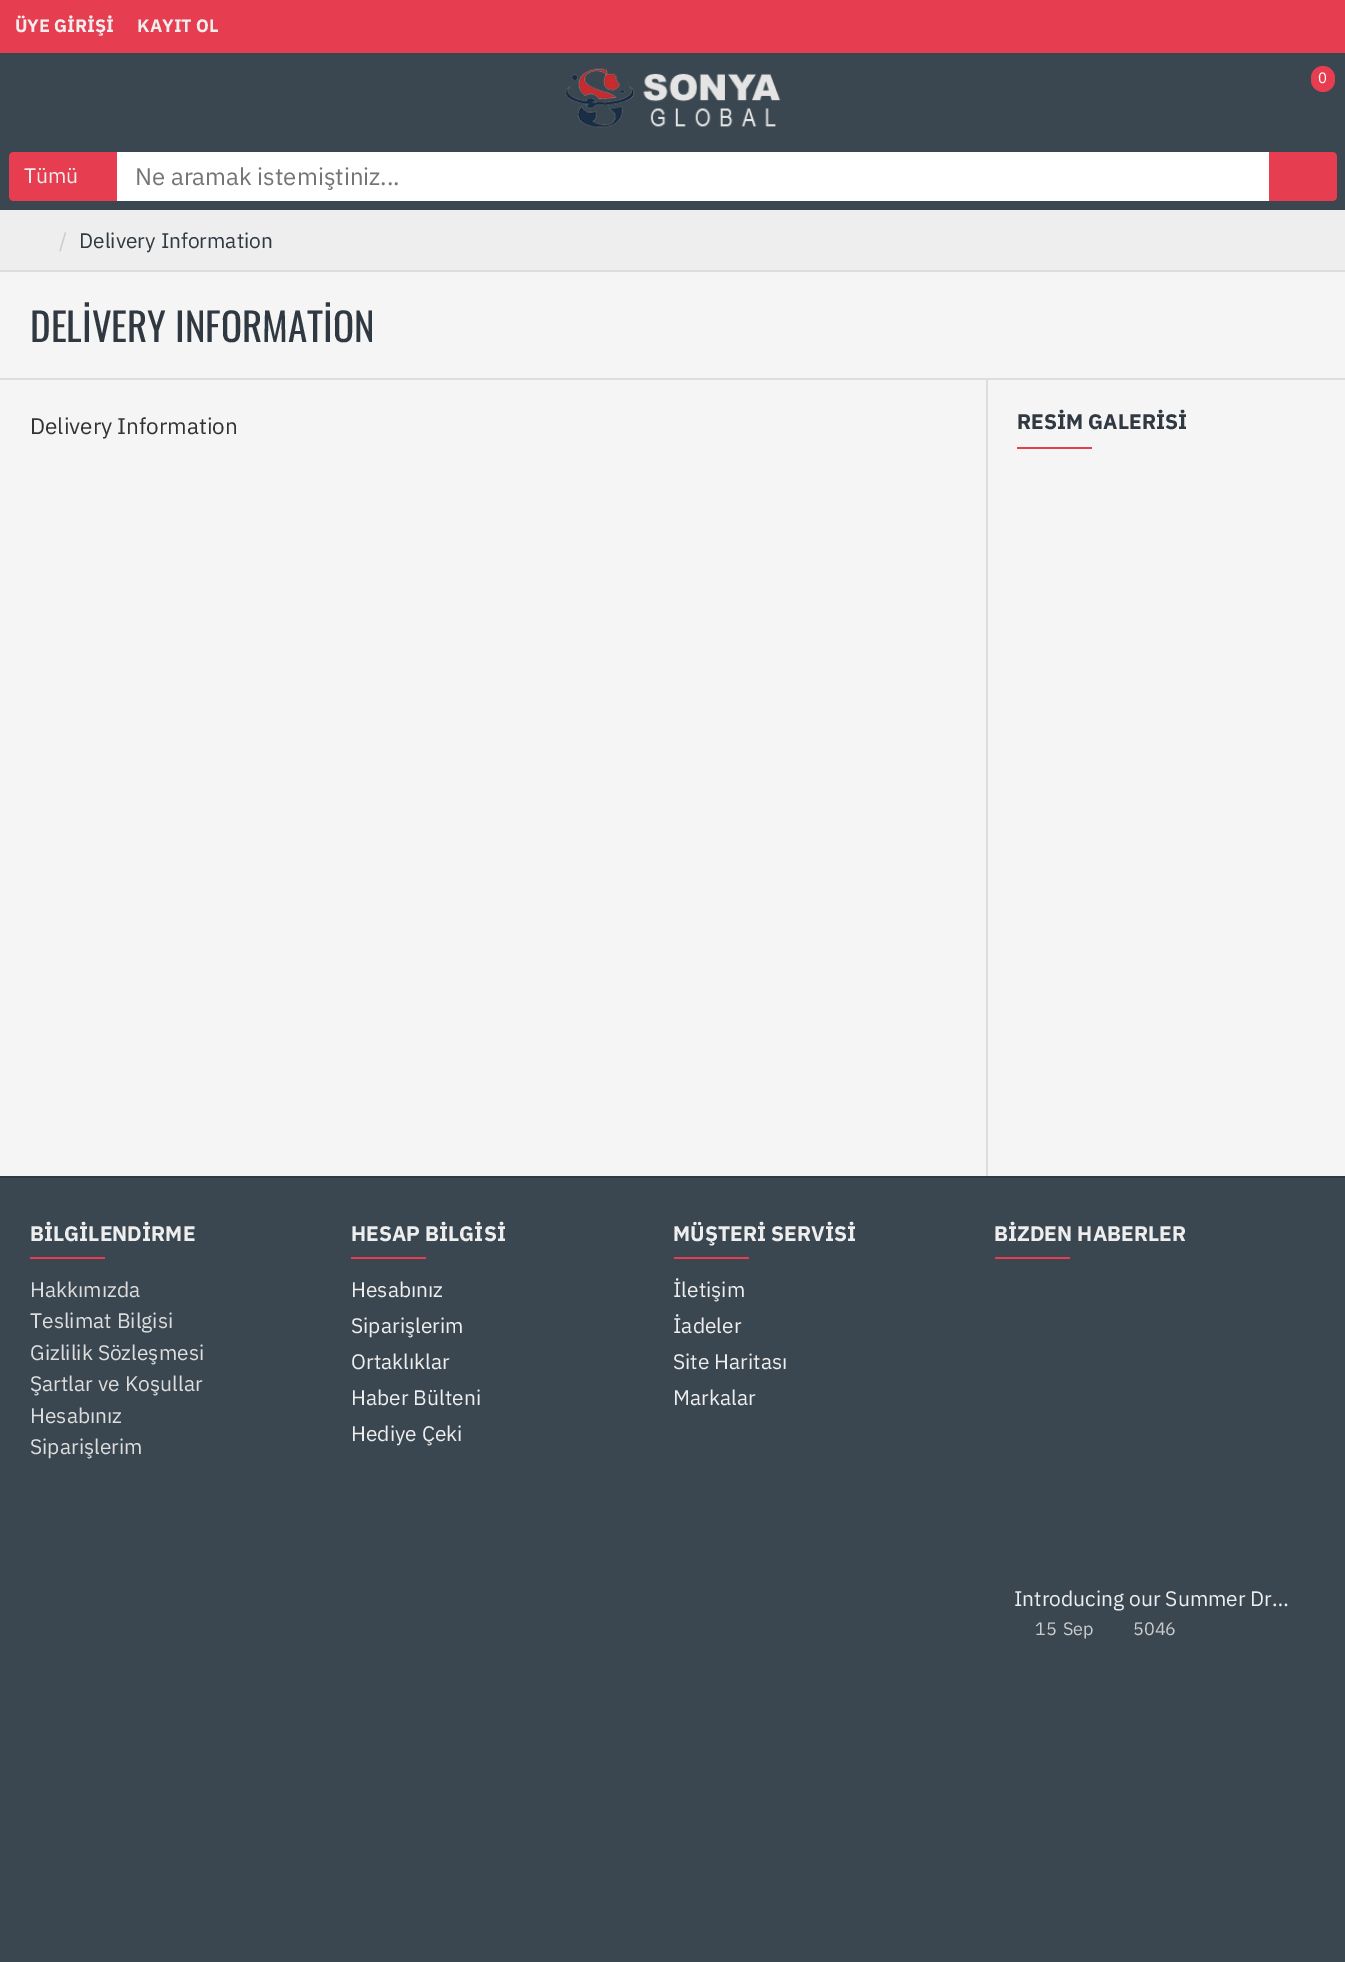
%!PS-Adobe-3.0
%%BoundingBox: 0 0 1345 1962
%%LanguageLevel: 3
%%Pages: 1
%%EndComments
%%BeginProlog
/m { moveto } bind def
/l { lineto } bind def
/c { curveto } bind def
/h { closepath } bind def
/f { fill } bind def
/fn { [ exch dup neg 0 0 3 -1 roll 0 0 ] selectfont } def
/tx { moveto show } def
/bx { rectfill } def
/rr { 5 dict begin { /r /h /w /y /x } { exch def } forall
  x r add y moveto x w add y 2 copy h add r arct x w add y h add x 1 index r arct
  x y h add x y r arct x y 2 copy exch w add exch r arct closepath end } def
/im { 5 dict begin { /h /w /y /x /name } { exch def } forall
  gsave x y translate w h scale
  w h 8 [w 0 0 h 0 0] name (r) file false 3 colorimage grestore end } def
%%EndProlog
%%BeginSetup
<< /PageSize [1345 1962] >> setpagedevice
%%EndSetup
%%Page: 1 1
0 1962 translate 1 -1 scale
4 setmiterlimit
0.961 setgray
0 0 1345 1962 bx
0.906 0.239 0.314 setrgbcolor
0 0 1345 53 bx
/IBMPlexSans-Bold 18 fn
0.933 setgray
(ÜYE GİRİŞİ) 15 32 tx
(KAYIT OL) 137 32 tx
0.227 0.278 0.314 setrgbcolor
0 53 1345 157 bx
(image0.raw) 565 68 216 60 im
0.906 0.239 0.314 setrgbcolor
1311 66 24 26 12 rr f
/IBMPlexSans-Regular 15 fn
1 setgray
(0) 1318 83 tx
0.906 0.239 0.314 setrgbcolor
14 152 m 117 152 l 117 201 l 14 201 l 11 201 9 199 9 196 c 9 157 l 9 154 11 152 14 152 c h f
/IBMPlexSans-Regular 21 fn
0.933 setgray
(Tümü) 24 183 tx
1 setgray
117 152 1152 49 bx
/IBMPlexSans-Regular 24 fn
0.459 setgray
(Ne aramak istemiştiniz...) 135 185 tx
0.906 0.239 0.314 setrgbcolor
1269 152 m 1332 152 l 1335 152 1337 154 1337 157 c 1337 196 l 1337 199 1335 201 1332 201 c 1269 201 l h f
0.933 setgray
0 210 1345 60 bx
0.867 setgray
0 270 1345 2 bx
/IBMPlexSans-Regular 21 fn
0.8 setgray
(/) 59 248 tx
0.188 0.22 0.255 setrgbcolor
(Delivery Information) 79 248 tx
0.867 setgray
0 378 1345 2 bx
/Oswald-Regular 39 fn
0.188 0.22 0.255 setrgbcolor
(DELİVERY INFORMATİON) 30 342 tx
/IBMPlexSans-Regular 22.5 fn
0.2 setgray
(Delivery Information) 30 434 tx
0.867 setgray
986 380 2 796 bx
/IBMPlexSans-Bold 21 fn
0.188 0.22 0.255 setrgbcolor
(RESİM GALERİSİ) 1017 429 tx
0.906 0.239 0.314 setrgbcolor
1017 447 75 2 bx
0.227 0.278 0.314 setrgbcolor
0 1178 1345 784 bx
0.188 0.22 0.255 setrgbcolor
0 1176 1345 2 bx
0.933 setgray
(BİLGİLENDİRME) 30 1241 tx
0.906 0.239 0.314 setrgbcolor
30 1257 75 2 bx
/IBMPlexSans-Regular 21 fn
0.867 setgray
(Hakkımızda) 30 1297 tx
(Teslimat Bilgisi) 30 1328 tx
(Gizlilik Sözleşmesi) 30 1360 tx
(Şartlar ve Koşullar) 30 1391 tx
(Hesabınız) 30 1423 tx
(Siparişlerim) 30 1454 tx
/IBMPlexSans-Bold 21 fn
0.933 setgray
(HESAP BİLGİSİ) 351 1241 tx
0.906 0.239 0.314 setrgbcolor
351 1257 75 2 bx
/IBMPlexSans-Regular 21 fn
0.933 setgray
(Hesabınız) 351 1297 tx
(Siparişlerim) 351 1333 tx
(Ortaklıklar) 351 1369 tx
(Haber Bülteni) 351 1405 tx
(Hediye Çeki) 351 1441 tx
/IBMPlexSans-Bold 21 fn
(MÜŞTERİ SERVİSİ) 673 1241 tx
0.906 0.239 0.314 setrgbcolor
674 1257 75 2 bx
/IBMPlexSans-Regular 21 fn
0.933 setgray
(İletişim) 673 1297 tx
(İadeler) 673 1333 tx
(Site Haritası) 673 1369 tx
(Markalar) 673 1405 tx
/IBMPlexSans-Bold 21 fn
(BİZDEN HABERLER) 994 1241 tx
0.906 0.239 0.314 setrgbcolor
995 1257 75 2 bx
/IBMPlexSans-Regular 21 fn
0.933 setgray
(Introducing our Summer Dr…) 1014 1606 tx
/IBMPlexSans-Regular 18 fn
0.8 setgray
(15) 1035 1635 tx
(Sep) 1063 1635 tx
(5046) 1133 1635 tx
showpage
%%EOF
